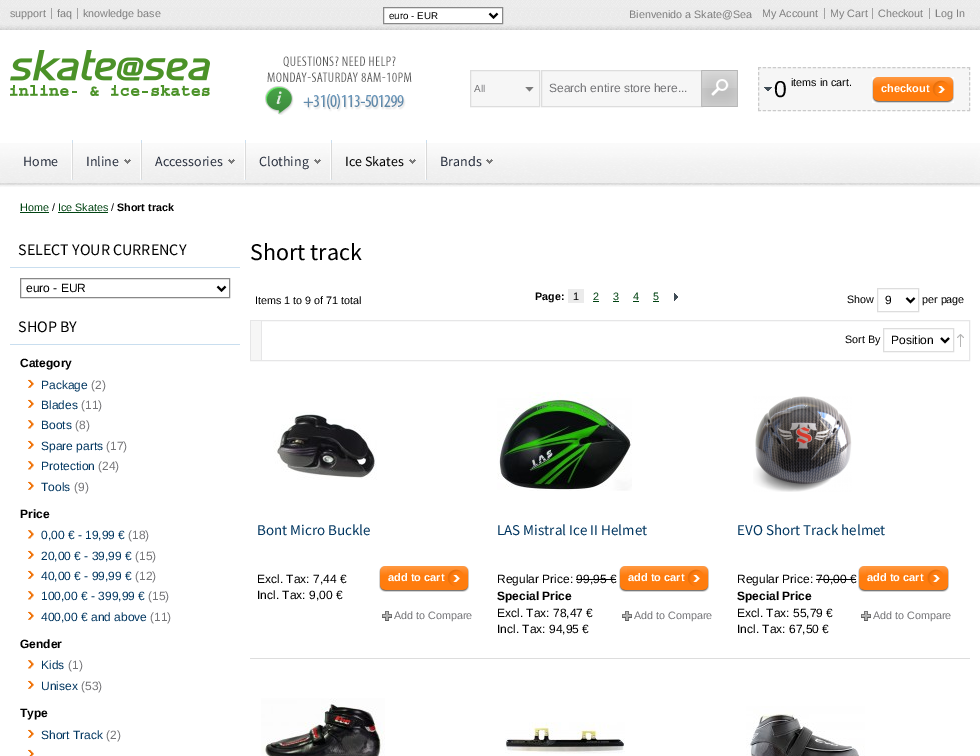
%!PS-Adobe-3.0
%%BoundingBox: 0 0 980 756
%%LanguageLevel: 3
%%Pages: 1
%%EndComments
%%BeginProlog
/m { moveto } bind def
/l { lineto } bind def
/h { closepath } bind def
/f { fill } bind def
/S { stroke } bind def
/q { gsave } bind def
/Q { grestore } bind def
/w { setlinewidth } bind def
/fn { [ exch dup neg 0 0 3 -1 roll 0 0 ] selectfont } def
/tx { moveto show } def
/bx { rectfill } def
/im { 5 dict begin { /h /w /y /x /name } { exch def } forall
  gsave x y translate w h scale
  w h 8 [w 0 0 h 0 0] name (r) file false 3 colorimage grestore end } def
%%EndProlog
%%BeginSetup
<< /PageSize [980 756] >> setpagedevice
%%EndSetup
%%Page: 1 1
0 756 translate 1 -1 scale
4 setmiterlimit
1 setgray
0 0 980 756 bx
(image0.raw) 0 0 980 30 im
/LiberationSans-Regular 10.75 fn
0.498 setgray
(support) 10 17 tx
(faq) 57 17 tx
0.639 setgray
51 8 1 11 bx
0.498 setgray
(knowledge base) 83 17 tx
0.639 setgray
77 8 1 11 bx
1 setgray
383.5 7.5 m 502.5 7.5 l 502.5 23.5 l 383.5 23.5 l h q f Q
0.533 setgray
S
0 setgray
2 w
489.5 13.5 m 493.5 17.5 l 497.5 13.5 l S
/LiberationSans-Regular 9.75 fn
(euro - EUR) 389 19 tx
/LiberationSans-Regular 10.75 fn
0.498 setgray
(Bienvenido a Skate@Sea) 629 18 tx
(My Account) 762 17 tx
(My Cart) 830 17 tx
0.639 setgray
824 8 1 11 bx
0.498 setgray
(Checkout) 878 17 tx
0.639 setgray
872 8 1 11 bx
0.498 setgray
(Log In) 935 17 tx
0.639 setgray
929 8 1 11 bx
(image1.raw) 10 50 200 46 im
(image2.raw) 265 56 147 59 im
0.965 setgray
470.5 70.5 m 539.5 70.5 l 539.5 106.5 l 470.5 106.5 l h q f Q
0.867 setgray
1 w
S
/LiberationSans-Regular 10 fn
0.459 0.459 0.471 setrgbcolor
(All) 474 92 tx
(image3.raw) 525 87 9 5 im
0.965 setgray
542 71 159 35 bx
0.867 setgray
541.5 70.5 161 36 rectstroke
/LiberationSans-Regular 12 fn
0.459 0.459 0.471 setrgbcolor
(Search entire store here...) 549 92 tx
(image4.raw) 701 70 37 37 im
0.965 setgray
758 67 212 44 bx
0.796 setgray
[3 1.98] 0 setdash
758 67.5 m 970 67.5 l S
[3 2.12] 0 setdash
969.5 67 m 969.5 111 l S
[3 1.98] 0 setdash
758 110.5 m 970 110.5 l S
[3 2.12] 0 setdash
758.5 67 m 758.5 111 l S
(image5.raw) 764 87 8 4 im
/LiberationSans-Regular 23 fn
0 setgray
(0) 774 97 tx
/LiberationSans-Regular 10.75 fn
(items in cart.) 791 86 tx
(image6.raw) 872 77 8 26 im
(image7.raw) 880 77 74 26 im
/LiberationSans-Bold 11 fn
1 setgray
(checkout) 881 92 tx
(image8.raw) 0 143 980 44 im
/SourceSansPro-Regular 14 fn
0.153 0.18 0.239 setrgbcolor
(Home) 23 166 tx
(image9.raw) 71 140 2 40 im
(Inline) 86 166 tx
(image10.raw) 124 159 7 5 im
(image11.raw) 140 140 2 40 im
(Accessories) 155 166 tx
(image12.raw) 228 159 7 5 im
(image13.raw) 244 140 2 40 im
(Clothing) 259 166 tx
(image14.raw) 314 159 7 5 im
(image11.raw) 330 140 2 40 im
0 setgray
(Ice Skates) 345 166 tx
(image15.raw) 409 159 7 5 im
(image11.raw) 425 140 2 40 im
0.153 0.18 0.239 setrgbcolor
(Brands) 440 166 tx
(image16.raw) 486 159 7 5 im
/LiberationSans-Regular 10.75 fn
0.008 0.267 0.075 setrgbcolor
(Home) 20 211 tx
20 212 29 1 bx
0 setgray
(/) 52 211 tx
0.008 0.267 0.075 setrgbcolor
(Ice Skates) 58 211 tx
58 212 50 1 bx
0 setgray
(/) 111 211 tx
/LiberationSans-Bold 10.75 fn
(Short track) 117 211 tx
0.788 0.871 0.937 setrgbcolor
10 267 230 1 bx
/SourceSansPro-Regular 16 fn
0 setgray
(SELECT YOUR CURRENCY) 18 255 tx
0.533 setgray
[] 0 setdash
20.5 278.5 209 19 rectstroke
0 setgray
2 w
217.5 286.5 m 221.5 290.5 l 225.5 286.5 l S
/LiberationSans-Regular 12 fn
(euro - EUR) 26 292 tx
0.788 0.871 0.937 setrgbcolor
10 344 230 1 bx
/SourceSansPro-Regular 16 fn
0 setgray
(SHOP BY) 18 332 tx
/LiberationSans-Bold 12 fn
(Category) 20 367 tx
(image17.raw) 28 379 6 9 im
/LiberationSans-Regular 12 fn
0.008 0.216 0.38 setrgbcolor
(Package) 41 389 tx
0.459 0.459 0.471 setrgbcolor
(\(2\)) 91 389 tx
(image17.raw) 28 399 6 9 im
0.008 0.216 0.38 setrgbcolor
(Blades) 41 409 tx
0.459 0.459 0.471 setrgbcolor
(\(11\)) 81 409 tx
(image18.raw) 28 420 6 9 im
0.008 0.216 0.38 setrgbcolor
(Boots) 41 429 tx
0.459 0.459 0.471 setrgbcolor
(\(8\)) 75 429 tx
(image17.raw) 28 440 6 9 im
0.008 0.216 0.38 setrgbcolor
(Spare parts) 41 450 tx
0.459 0.459 0.471 setrgbcolor
(\(17\)) 106 450 tx
(image18.raw) 28 461 6 9 im
0.008 0.216 0.38 setrgbcolor
(Protection) 41 470 tx
0.459 0.459 0.471 setrgbcolor
(\(24\)) 98 470 tx
(image17.raw) 28 481 6 9 im
0.008 0.216 0.38 setrgbcolor
(Tools) 41 491 tx
0.459 0.459 0.471 setrgbcolor
(\(9\)) 74 491 tx
/LiberationSans-Bold 12 fn
0 setgray
(Price) 20 518 tx
(image18.raw) 28 530 6 9 im
/LiberationSans-Regular 12 fn
0.008 0.216 0.38 setrgbcolor
(0,00 € - 19,99 €) 41 539 tx
0.459 0.459 0.471 setrgbcolor
(\(18\)) 128 539 tx
(image17.raw) 28 550 6 9 im
0.008 0.216 0.38 setrgbcolor
(20,00 € - 39,99 €) 41 560 tx
0.459 0.459 0.471 setrgbcolor
(\(15\)) 135 560 tx
(image17.raw) 28 570 6 9 im
0.008 0.216 0.38 setrgbcolor
(40,00 € - 99,99 €) 41 580 tx
0.459 0.459 0.471 setrgbcolor
(\(12\)) 135 580 tx
(image18.raw) 28 591 6 9 im
0.008 0.216 0.38 setrgbcolor
(100,00 € - 399,99 €) 41 600 tx
0.459 0.459 0.471 setrgbcolor
(\(15\)) 148 600 tx
(image17.raw) 28 611 6 9 im
0.008 0.216 0.38 setrgbcolor
(400,00 € and above) 41 621 tx
0.459 0.459 0.471 setrgbcolor
(\(11\)) 150 621 tx
/LiberationSans-Bold 12 fn
0 setgray
(Gender) 20 648 tx
(image18.raw) 28 660 6 9 im
/LiberationSans-Regular 12 fn
0.008 0.216 0.38 setrgbcolor
(Kids) 41 669 tx
0.459 0.459 0.471 setrgbcolor
(\(1\)) 68 669 tx
(image17.raw) 28 680 6 9 im
0.008 0.216 0.38 setrgbcolor
(Unisex) 41 690 tx
0.459 0.459 0.471 setrgbcolor
(\(53\)) 81 690 tx
/LiberationSans-Bold 12 fn
0 setgray
(Type) 20 717 tx
(image17.raw) 28 729 6 9 im
/LiberationSans-Regular 12 fn
0.008 0.216 0.38 setrgbcolor
(Short Track) 41 739 tx
0.459 0.459 0.471 setrgbcolor
(\(2\)) 106 739 tx
(image19.raw) 28 749 6 7 im
/SourceSansPro-Regular 24 fn
0 setgray
(Short track) 250 260 tx
/LiberationSans-Regular 10.75 fn
(Items 1 to 9 of 71 total) 255 304 tx
/LiberationSans-Bold 10.75 fn
(Page:) 535 300 tx
0.922 setgray
568 289 16 14 bx
/LiberationSans-Regular 10.75 fn
0 setgray
(1) 573 300 tx
0.008 0.267 0.075 setrgbcolor
(2) 593 300 tx
593 301 6 1 bx
(3) 613 300 tx
613 301 6 1 bx
(4) 633 300 tx
633 301 6 1 bx
(5) 653 300 tx
653 301 6 1 bx
(image20.raw) 674 293 4 8 im
0 setgray
(Show) 847 303 tx
0.867 setgray
1 w
877.5 288.5 41 23 rectstroke
0 setgray
2 w
906.5 298 m 910.5 302 l 914.5 298 l S
/LiberationSans-Regular 12 fn
(9) 885 304 tx
/LiberationSans-Regular 10.75 fn
(per page) 922 303 tx
0.902 0.902 0.906 setrgbcolor
1 w
250.5 320.5 719 40 rectstroke
0.965 setgray
251 321 10 39 bx
0.902 0.902 0.906 setrgbcolor
261 321 1 39 bx
0 setgray
(Sort By) 845 343 tx
0.867 setgray
883.5 328.5 70 23 rectstroke
0 setgray
2 w
941 338 m 945 342 l 949 338 l S
/LiberationSans-Regular 12 fn
(Position) 891 344 tx
(image21.raw) 957 334 7 13 im
0.867 setgray
250 658 720 1 bx
(image22.raw) 273 411 104 69 im
/SourceSansPro-Regular 15 fn
0.008 0.216 0.38 setrgbcolor
(Bont Micro Buckle) 257 535 tx
/LiberationSans-Regular 12 fn
0 setgray
(Excl. Tax: 7,44 €) 257 583 tx
(Incl. Tax: 9,00 €) 257 599 tx
(image6.raw) 379 566 8 26 im
(image23.raw) 387 566 82 26 im
/LiberationSans-Bold 11 fn
1 setgray
(add to cart) 388 581 tx
(image24.raw) 382 611 10 10 im
/LiberationSans-Regular 10.75 fn
0.459 0.459 0.471 setrgbcolor
(Add to Compare) 394 619 tx
(image25.raw) 497 392 135 99 im
/SourceSansPro-Regular 15 fn
0.008 0.216 0.38 setrgbcolor
(LAS Mistral Ice II Helmet) 497 535 tx
/LiberationSans-Regular 12 fn
0 setgray
(Regular Price: 99,95 €) 497 583 tx
576 579 40 1 bx
/LiberationSans-Bold 12 fn
(Special Price) 497 600 tx
/LiberationSans-Regular 12 fn
(Excl. Tax: 78,47 €) 497 617 tx
(Incl. Tax: 94,95 €) 497 633 tx
(image6.raw) 619 566 8 26 im
(image23.raw) 627 566 82 26 im
/LiberationSans-Bold 11 fn
1 setgray
(add to cart) 628 581 tx
(image24.raw) 622 611 10 10 im
/LiberationSans-Regular 10.75 fn
0.459 0.459 0.471 setrgbcolor
(Add to Compare) 634 619 tx
(image26.raw) 753 396 99 96 im
/SourceSansPro-Regular 15 fn
0.008 0.216 0.38 setrgbcolor
(EVO Short Track helmet) 737 535 tx
/LiberationSans-Regular 12 fn
0 setgray
(Regular Price: 70,00 €) 737 583 tx
816 579 40 1 bx
/LiberationSans-Bold 12 fn
(Special Price) 737 600 tx
/LiberationSans-Regular 12 fn
(Excl. Tax: 55,79 €) 737 617 tx
(Incl. Tax: 67,50 €) 737 633 tx
(image27.raw) 858 566 8 26 im
(image28.raw) 866 566 83 26 im
/LiberationSans-Bold 11 fn
1 setgray
(add to cart) 867 581 tx
(image24.raw) 861 611 10 10 im
/LiberationSans-Regular 10.75 fn
0.459 0.459 0.471 setrgbcolor
(Add to Compare) 873 619 tx
(image29.raw) 261 698 124 58 im
(image30.raw) 505 722 120 32 im
(image31.raw) 746 706 119 50 im
showpage
%%EOF
